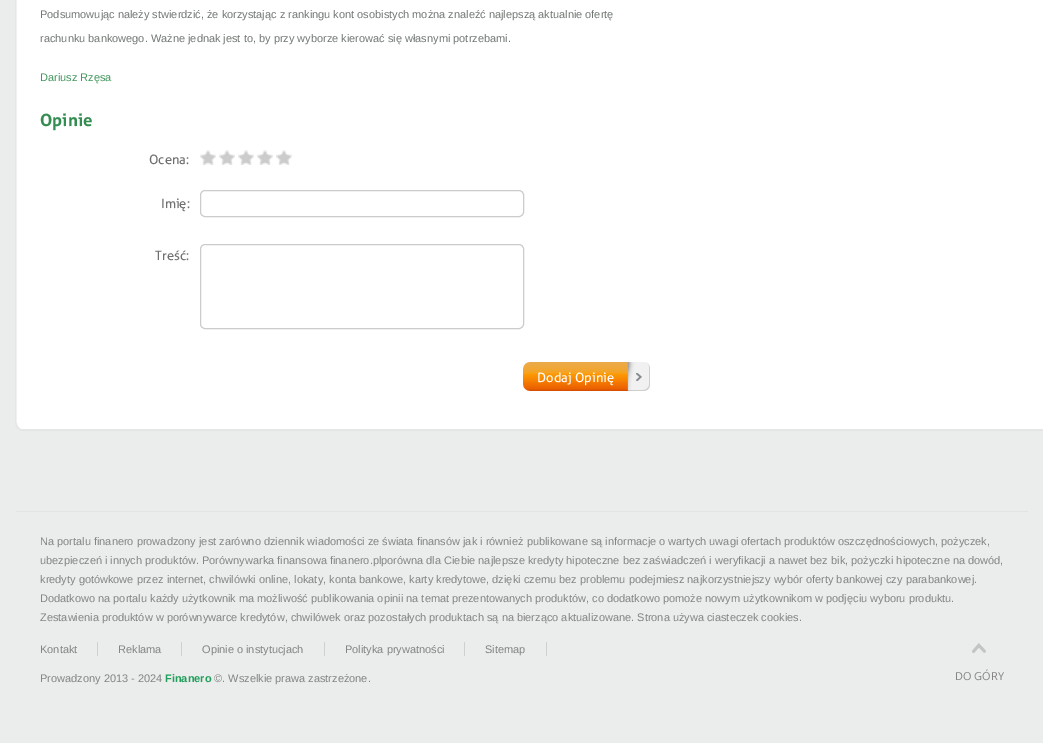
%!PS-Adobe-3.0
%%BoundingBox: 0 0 1043 743
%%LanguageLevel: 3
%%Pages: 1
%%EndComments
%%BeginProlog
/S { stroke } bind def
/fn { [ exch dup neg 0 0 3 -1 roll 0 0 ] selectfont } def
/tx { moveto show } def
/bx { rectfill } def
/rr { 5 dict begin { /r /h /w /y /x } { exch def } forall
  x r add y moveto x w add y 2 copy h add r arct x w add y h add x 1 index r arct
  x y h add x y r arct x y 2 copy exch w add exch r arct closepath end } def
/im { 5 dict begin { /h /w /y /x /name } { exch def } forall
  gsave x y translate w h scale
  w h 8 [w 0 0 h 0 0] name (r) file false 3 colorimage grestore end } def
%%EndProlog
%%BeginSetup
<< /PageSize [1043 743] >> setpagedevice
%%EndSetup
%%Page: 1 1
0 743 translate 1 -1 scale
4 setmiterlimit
0.922 0.925 0.925 setrgbcolor
0 0 1043 743 bx
(image0.raw) 15 0 1028 423 im
(image1.raw) 15 423 1028 8 im
/LiberationSans-Regular 11 fn
0.443 0.471 0.451 setrgbcolor
(Podsumowując należy stwierdzić, że korzystając z rankingu kont osobistych można znaleźć najlepszą aktualnie ofertę) 40 18 tx
(rachunku bankowego. Ważne jednak jest to, by przy wyborze kierować się własnymi potrzebami.) 40 42 tx
0.255 0.584 0.361 setrgbcolor
(Dariusz Rzęsa) 40 81 tx
/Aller-Bold 17 fn
0.2 0.553 0.314 setrgbcolor
(Opinie) 40 126 tx
/Aller-Regular 13 fn
0.439 setgray
(Ocena:) 149 164 tx
(image2.raw) 200 150 16 15 im
(image2.raw) 219 150 16 15 im
(image2.raw) 238 150 16 15 im
(image2.raw) 257 150 16 15 im
(image2.raw) 276 150 16 15 im
(Imię:) 161 208 tx
0.8 setgray
200.5 190.5 323 26 4.5 rr S
0.439 setgray
(Treść:) 155 260 tx
0.8 setgray
200.5 244.5 323 84 4.5 rr S
(image3.raw) 523 362 111 29 im
1 setgray
(Dodaj Opinię) 537 382 tx
(image4.raw) 634 362 16 29 im
0.886 0.89 0.89 setrgbcolor
16 511 1012 1 bx
/LiberationSans-Regular 11 fn
0.518 setgray
(Na portalu finanero prowadzony jest zarówno dziennik wiadomości ze świata finansów jak i również publikowane są informacje o wartych uwagi ofertach produktów oszczędnościowych, pożyczek,) 40 545 tx
(ubezpieczeń i innych produktów. Porównywarka finansowa finanero.plporówna dla Ciebie najlepsze kredyty hipoteczne bez zaświadczeń i weryfikacji a nawet bez bik, pożyczki hipoteczne na dowód,) 40 564 tx
(kredyty gotówkowe przez internet, chwilówki online, lokaty, konta bankowe, karty kredytowe, dzięki czemu bez problemu podejmiesz najkorzystniejszy wybór oferty bankowej czy parabankowej.) 40 583 tx
(Dodatkowo na portalu każdy użytkownik ma możliwość publikowania opinii na temat prezentowanych produktów, co dodatkowo pomoże nowym użytkownikom w podjęciu wyboru produktu.) 40 602 tx
(Zestawienia produktów w porównywarce kredytów, chwilówek oraz pozostałych produktach są na bierząco aktualizowane. Strona używa ciasteczek cookies.) 40 621 tx
0.812 0.816 0.816 setrgbcolor
97 642 1 14 bx
0.518 setgray
(Kontakt) 40 653 tx
0.812 0.816 0.816 setrgbcolor
181 642 1 14 bx
0.518 setgray
(Reklama) 118 653 tx
0.812 0.816 0.816 setrgbcolor
324 642 1 14 bx
0.518 setgray
(Opinie o instytucjach) 202 653 tx
0.812 0.816 0.816 setrgbcolor
464 642 1 14 bx
0.518 setgray
(Polityka prywatności) 345 653 tx
0.812 0.816 0.816 setrgbcolor
546 642 1 14 bx
0.518 setgray
(Sitemap) 485 653 tx
(Prowadzony 2013 - 2024) 40 682 tx
/LiberationSans-Bold 11 fn
0.133 0.624 0.357 setrgbcolor
(Finanero) 165 682 tx
/LiberationSans-Regular 11 fn
0.518 setgray
(©. Wszelkie prawa zastrzeżone.) 214 682 tx
(image5.raw) 972 643 14 10 im
/OpenSans-Regular 11 fn
(DO GÓRY) 955 680 tx
showpage
%%EOF
